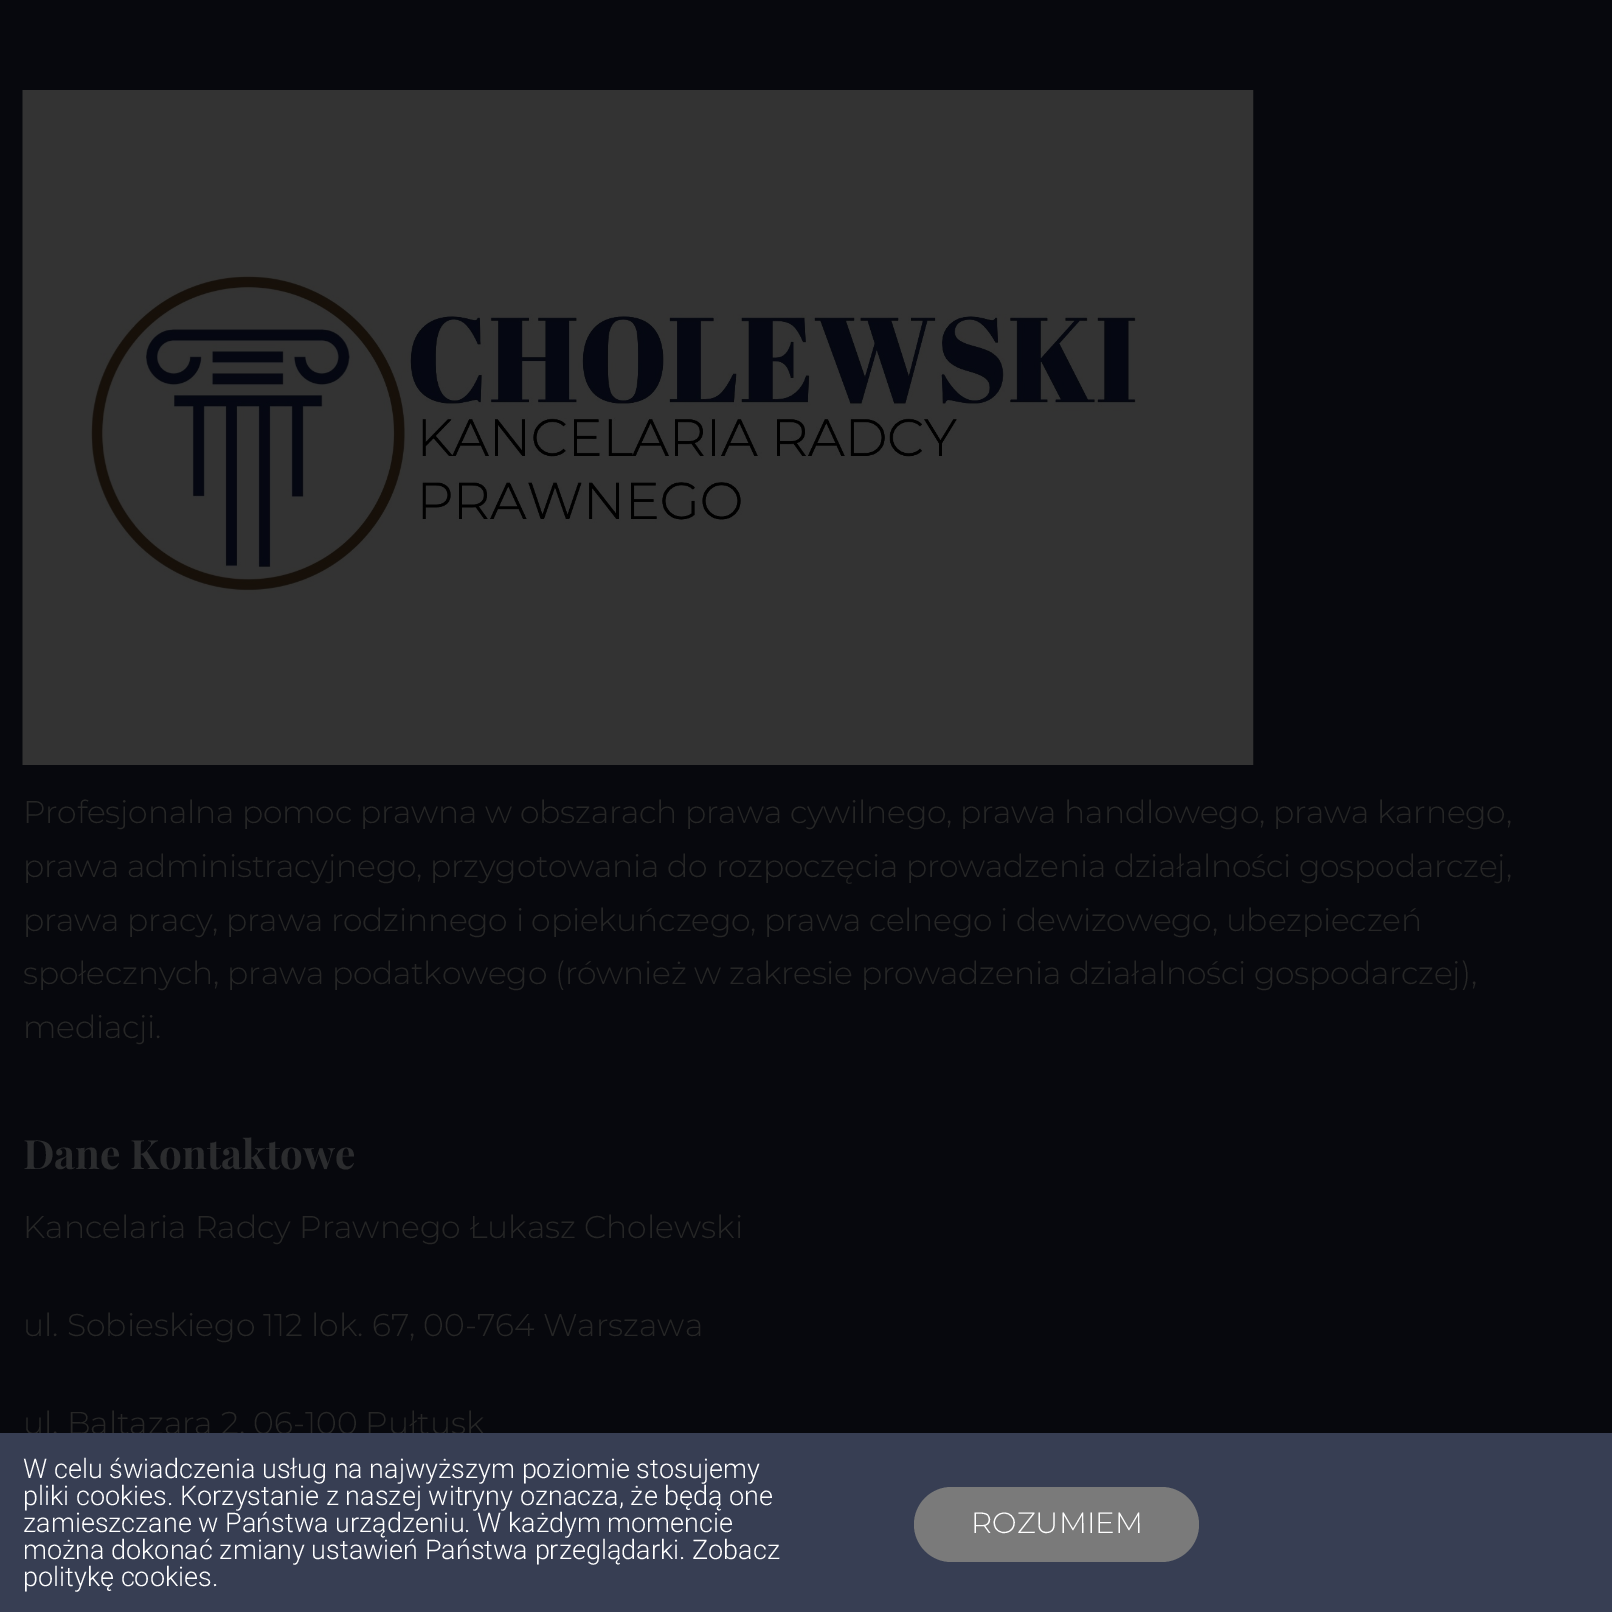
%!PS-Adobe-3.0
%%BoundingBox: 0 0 1612 1612
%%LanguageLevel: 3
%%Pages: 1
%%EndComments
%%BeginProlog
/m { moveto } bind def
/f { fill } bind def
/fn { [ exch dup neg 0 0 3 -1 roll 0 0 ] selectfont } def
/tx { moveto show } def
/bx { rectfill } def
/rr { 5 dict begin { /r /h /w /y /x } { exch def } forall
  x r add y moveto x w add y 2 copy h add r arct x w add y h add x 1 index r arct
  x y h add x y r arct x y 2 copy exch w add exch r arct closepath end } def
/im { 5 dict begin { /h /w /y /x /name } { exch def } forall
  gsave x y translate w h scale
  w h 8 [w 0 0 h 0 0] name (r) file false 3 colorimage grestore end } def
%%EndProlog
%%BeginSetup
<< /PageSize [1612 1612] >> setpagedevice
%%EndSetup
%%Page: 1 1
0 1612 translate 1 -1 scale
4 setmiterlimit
0.027 0.031 0.051 setrgbcolor
0 0 1612 1612 bx
(image0.raw) 22 90 1232 675 im
/Montserrat-Light 31.5 fn
0.149 setgray
23 823 m -0.23 0 (Profesjonalna pomoc prawna w obszarach prawa cywilnego, prawa handlowego, prawa karnego,) ashow
23 877 m -0.23 0 (prawa administracyjnego, przygotowania do rozpoczęcia prowadzenia działalności gospodarczej,) ashow
23 931 m -0.23 0 (prawa pracy, prawa rodzinnego i opiekuńczego, prawa celnego i dewizowego, ubezpieczeń) ashow
23 984 m -0.23 0 (społecznych, prawa podatkowego \(również w zakresie prowadzenia działalności gospodarczej\),) ashow
23 1038 m -0.23 0 (mediacji.) ashow
/PlayfairDisplay-Bold 40.5 fn
0.169 0.173 0.18 setrgbcolor
(Dane Kontaktowe) 23 1169 tx
/Montserrat-Light 31.5 fn
0.149 setgray
(Kancelaria Radcy Prawnego Łukasz Cholewski) 23 1238 tx
(ul. Sobieskiego 112 lok. 67, 00-764 Warszawa) 23 1336 tx
(ul. Baltazara 2, 06-100 Pułtusk) 23 1434 tx
0.216 0.243 0.325 setrgbcolor
0 1433 1612 179 bx
/Roboto-Light 27 fn
1 setgray
(W celu świadczenia usług na najwyższym poziomie stosujemy) 23 1478 tx
(pliki cookies. Korzystanie z naszej witryny oznacza, że będą one) 23 1505 tx
(zamieszczane w Państwa urządzeniu. W każdym momencie) 23 1532 tx
(można dokonać zmiany ustawień Państwa przeglądarki. Zobacz) 23 1559 tx
(politykę cookies.) 23 1586 tx
0.478 setgray
914 1487 285 75 37.5 rr f
/Montserrat-Light 29.25 fn
1 setgray
(ROZUMIEM) 971 1533 tx
showpage
%%EOF
